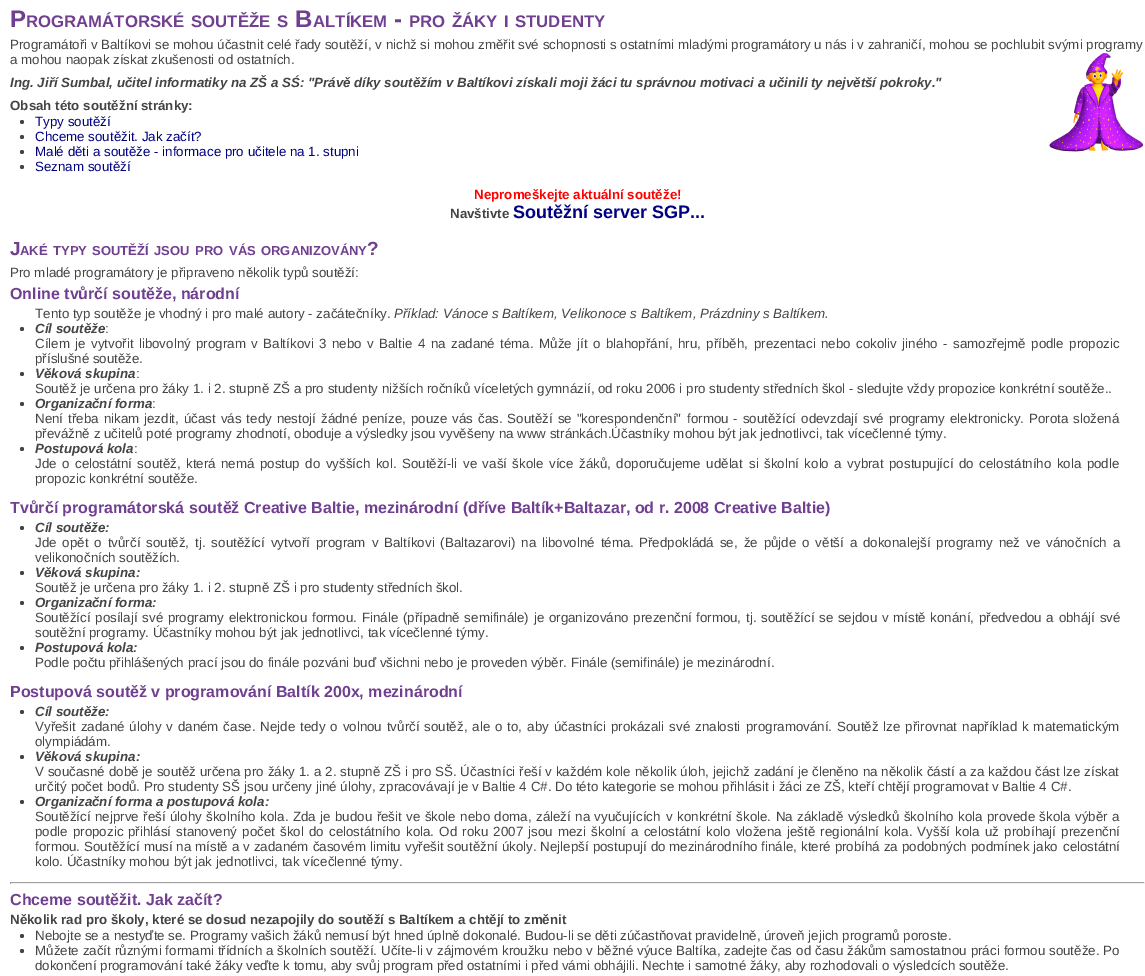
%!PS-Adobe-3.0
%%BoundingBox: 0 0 1145 976
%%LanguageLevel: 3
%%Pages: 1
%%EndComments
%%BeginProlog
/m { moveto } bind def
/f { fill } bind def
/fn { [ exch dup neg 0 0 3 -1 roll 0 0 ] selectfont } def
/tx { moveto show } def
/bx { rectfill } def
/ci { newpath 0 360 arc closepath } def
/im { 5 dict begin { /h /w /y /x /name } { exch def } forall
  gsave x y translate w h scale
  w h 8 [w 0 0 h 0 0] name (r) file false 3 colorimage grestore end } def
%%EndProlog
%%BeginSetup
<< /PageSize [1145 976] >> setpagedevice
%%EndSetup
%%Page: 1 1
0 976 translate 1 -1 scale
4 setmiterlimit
1 setgray
0 0 1145 976 bx
/LiberationSans-Bold 24 fn
0.439 0.247 0.565 setrgbcolor
(P) 10 27 tx
/LiberationSans-Bold 16.75 fn
(ROGRAMÁTORSKÉ) 26 27 tx
(SOUTĚŽE) 191 27 tx
(S) 277 27 tx
/LiberationSans-Bold 24 fn
(B) 295 27 tx
/LiberationSans-Bold 16.75 fn
(ALTÍKEM) 313 27 tx
/LiberationSans-Bold 24 fn
(-) 394 27 tx
/LiberationSans-Bold 16.75 fn
(PRO) 409 27 tx
(ŽÁKY) 452 27 tx
(I) 504 27 tx
(STUDENTY) 515 27 tx
/LiberationSans-Regular 13.33 fn
0.267 setgray
(Programátoři v Baltíkovi se mohou účastnit celé řady soutěží, v nichž si mohou změřit své schopnosti s ostatními mladými programátory u nás i v zahraničí, mohou se pochlubit svými programy) 10 49 tx
(a mohou naopak získat zkušenosti od ostatních.) 10 64 tx
(image0.raw) 1049 52 95 100 im
/LiberationSans-BoldItalic 13.33 fn
(Ing. Jiří Sumbal, učitel informatiky na ZŠ a SŚ: "Právě díky soutěžím v Baltíkovi získali moji žáci tu správnou motivaci a učinili ty největší pokroky.") 10 87 tx
/LiberationSans-Bold 13.33 fn
(Obsah této soutěžní stránky:) 10 110 tx
22 122 2 ci f
/LiberationSans-Regular 13.33 fn
0 0 0.502 setrgbcolor
(Typy soutěží) 35 126 tx
0.267 setgray
22 137 2 ci f
0 0 0.502 setrgbcolor
(Chceme soutěžit. Jak začít?) 35 141 tx
0.267 setgray
22 152 2 ci f
0 0 0.502 setrgbcolor
(Malé děti a soutěže - informace pro učitele na 1. stupni) 35 156 tx
0.267 setgray
22 167 2 ci f
0 0 0.502 setrgbcolor
(Seznam soutěží) 35 171 tx
/LiberationSans-Bold 13.33 fn
1 0 0 setrgbcolor
(Nepromeškejte aktuální soutěže!) 474 199 tx
0.267 setgray
(Navštivte) 450 218 tx
/LiberationSans-Bold 18 fn
0 0 0.502 setrgbcolor
(Soutěžní server SGP...) 513 218 tx
/LiberationSans-Bold 19 fn
0.439 0.247 0.565 setrgbcolor
(J) 10 255 tx
/LiberationSans-Bold 13 fn
(AKÉ) 20 255 tx
(TYPY) 53 255 tx
(SOUTĚŽÍ) 92 255 tx
(JSOU) 154 255 tx
(PRO) 195 255 tx
(VÁS) 229 255 tx
(ORGANIZOVÁNY) 261 255 tx
/LiberationSans-Bold 19 fn
(?) 367 255 tx
/LiberationSans-Regular 13.33 fn
0.267 setgray
(Pro mladé programátory je připraveno několik typů soutěží:) 10 277 tx
/LiberationSans-Bold 16 fn
0.439 0.247 0.565 setrgbcolor
(Online tvůrčí soutěže, národní) 10 299 tx
/LiberationSans-Regular 13.33 fn
0.267 setgray
(Tento typ soutěže je vhodný i pro malé autory - začátečníky.) 35 318 tx
/LiberationSans-Italic 13.33 fn
(Příklad: Vánoce s Baltíkem, Velikonoce s Baltíkem, Prázdniny s Baltíkem.) 394 318 tx
22 329 2 ci f
/LiberationSans-BoldItalic 13.33 fn
(Cíl soutěže) 35 333 tx
/LiberationSans-Regular 13.33 fn
(:) 105 333 tx
35 348 m 1.75 0 32 (Cílem je vytvořit libovolný program v Baltíkovi 3 nebo v Baltie 4 na zadané téma. Může jít o blahopřání, hru, příběh,) widthshow
754 348 m 1.75 0 32 (prezentaci nebo cokoliv jiného - samozřejmě podle propozic) widthshow
(příslušné soutěže.) 35 363 tx
22 374 2 ci f
/LiberationSans-BoldItalic 13.33 fn
(Věková skupina) 35 378 tx
/LiberationSans-Regular 13.33 fn
(:) 136 378 tx
(Soutěž je určena pro žáky 1. i 2. stupně ZŠ a pro studenty nižších ročníků víceletých gymnázií, od roku 2006 i pro studenty středních škol - sledujte vždy propozice konkrétní soutěže..) 35 393 tx
22 404 2 ci f
/LiberationSans-BoldItalic 13.33 fn
(Organizační forma) 35 408 tx
/LiberationSans-Regular 13.33 fn
(:) 152 408 tx
35 423 m 1.3 0 32 (Není třeba nikam jezdit, účast vás tedy nestojí žádné peníze, pouze vás čas. Soutěží se "korespondenční") widthshow
687 423 m 1.25 0 32 (formou - soutěžící odevzdají své programy elektronicky. Porota složená) widthshow
(převážně z učitelů poté programy zhodnotí, oboduje a výsledky jsou vyvěšeny na www stránkách.Účastníky mohou být jak jednotlivci, tak vícečlenné týmy.) 35 438 tx
22 449 2 ci f
/LiberationSans-BoldItalic 13.33 fn
(Postupová kola) 35 453 tx
/LiberationSans-Regular 13.33 fn
(:) 134 453 tx
35 468 m 1.8 0 32 (Jde o celostátní soutěž, která nemá postup do vyšších kol. Soutěží-li ve vaší škole více žáků, doporučujeme udělat) widthshow
749 468 m 1.8 0 32 (si školní kolo a vybrat postupující do celostátního kola podle) widthshow
(propozic konkrétní soutěže.) 35 483 tx
/LiberationSans-Bold 16 fn
0.439 0.247 0.565 setrgbcolor
(Tvůrčí programátorská soutěž Creative Baltie, mezinárodní \(dříve Baltík+Baltazar, od r. 2008 Creative Baltie\)) 10 513 tx
0.267 setgray
22 528 2 ci f
/LiberationSans-BoldItalic 13.33 fn
(Cíl soutěže:) 35 532 tx
/LiberationSans-Regular 13.33 fn
35 547 m 2.25 0 32 (Jde opět o tvůrčí soutěž, tj. soutěžící vytvoří program v Baltíkovi \(Baltazarovi\) na libovolné téma.) widthshow
639 547 m 2.25 0 32 (Předpokládá se, že půjde o větší a dokonalejší programy než ve vánočních a) widthshow
(velikonočních soutěžích.) 35 562 tx
22 573 2 ci f
/LiberationSans-BoldItalic 13.33 fn
(Věková skupina:) 35 577 tx
/LiberationSans-Regular 13.33 fn
(Soutěž je určena pro žáky 1. i 2. stupně ZŠ i pro studenty středních škol.) 35 592 tx
22 603 2 ci f
/LiberationSans-BoldItalic 13.33 fn
(Organizační forma:) 35 607 tx
/LiberationSans-Regular 13.33 fn
35 622 m 1 0 32 (Soutěžící posílají své programy elektronickou formou. Finále \(případně semifinále\) je organizováno prezenční) widthshow
696 622 m 1 0 32 (formou, tj. soutěžící se sejdou v místě konání, předvedou a obhájí své) widthshow
(soutěžní programy. Účastníky mohou být jak jednotlivci, tak vícečlenné týmy.) 35 637 tx
22 648 2 ci f
/LiberationSans-BoldItalic 13.33 fn
(Postupová kola:) 35 652 tx
/LiberationSans-Regular 13.33 fn
(Podle počtu přihlášených prací jsou do finále pozváni buď všichni nebo je proveden výběr. Finále \(semifinále\) je mezinárodní.) 35 667 tx
/LiberationSans-Bold 16 fn
0.439 0.247 0.565 setrgbcolor
(Postupová soutěž v programování Baltík 200x, mezinárodní) 10 697 tx
0.267 setgray
22 712 2 ci f
/LiberationSans-BoldItalic 13.33 fn
(Cíl soutěže:) 35 716 tx
/LiberationSans-Regular 13.33 fn
35 731 m 1.25 0 32 (Vyřešit zadané úlohy v daném čase. Nejde tedy o volnou tvůrčí soutěž, ale o to, aby účastníci prokázali své znalosti) widthshow
746 731 m 1.25 0 32 (programování. Soutěž lze přirovnat například k matematickým) widthshow
(olympiádám.) 35 746 tx
22 757 2 ci f
/LiberationSans-BoldItalic 13.33 fn
(Věková skupina:) 35 761 tx
/LiberationSans-Regular 13.33 fn
35 776 m 0.2 0 32 (V současné době je soutěž určena pro žáky 1. a 2. stupně ZŠ i pro SŠ. Účastníci řeší v každém kole několik úloh, jejichž zadání je členěno na několik částí a za každou část lze získat) widthshow
(určitý počet bodů. Pro studenty SŠ jsou určeny jiné úlohy, zpracovávají je v Baltie 4 C#. Do této kategorie se mohou přihlásit i žáci ze ZŠ, kteří chtějí programovat v Baltie 4 C#.) 35 791 tx
22 802 2 ci f
/LiberationSans-BoldItalic 13.33 fn
(Organizační forma a postupová kola:) 35 806 tx
/LiberationSans-Regular 13.33 fn
35 821 m 0.75 0 32 (Soutěžící nejprve řeší úlohy školního kola. Zda je budou řešit ve škole nebo doma, záleží na vyučujících) widthshow
666 821 m 0.75 0 32 (v konkrétní škole. Na základě výsledků školního kola provede škola výběr a) widthshow
35 836 m 1.5 0 32 (podle propozic) widthshow
128 836 m 1.5 0 32 (přihlásí stanovený počet škol do celostátního kola. Od roku 2007 jsou mezi školní a celostátní kolo vložena) widthshow
787 836 m 1.5 0 32 (ještě regionální kola. Vyšší kola už probíhají prezenční) widthshow
35 851 m 0.25 0 32 (formou. Soutěžící musí na místě a v zadaném časovém limitu vyřešit soutěžní úkoly. Nejlepší postupují do mezinárodního finále, které probíhá za podobných podmínek jako) widthshow
(celostátní) 1063 851 tx
(kolo. Účastníky mohou být jak jednotlivci, tak vícečlenné týmy.) 35 866 tx
0.624 setgray
10 882 1135 1 bx
0.933 setgray
1144 882 1 2 bx
10 883 1135 1 bx
0.624 setgray
10 882 1 2 bx
/LiberationSans-Bold 16 fn
0.439 0.247 0.565 setrgbcolor
(Chceme soutěžit. Jak začít?) 10 905 tx
/LiberationSans-Bold 13.33 fn
0.267 setgray
(Několik rad pro školy, které se dosud nezapojily do soutěží s Baltíkem a chtějí to změnit) 10 924 tx
22 936 2 ci f
/LiberationSans-Regular 13.33 fn
(Nebojte se a nestyďte se. Programy vašich žáků nemusí být hned úplně dokonalé. Budou-li se děti zúčastňovat pravidelně, úroveň jejich programů poroste.) 35 940 tx
22 951 2 ci f
35 955 m 0.3 0 32 (Můžete začít různými formami třídních a školních soutěží. Učíte-li v zájmovém kroužku nebo v běžné výuce Baltíka, zadejte čas od času žákům samostatnou práci formou soutěže. Po) widthshow
(dokončení programování také žáky veďte k tomu, aby svůj program před ostatními i před vámi obhájili. Nechte i samotné žáky, aby rozhodovali o výsledcích soutěže.) 35 970 tx
showpage
%%EOF
